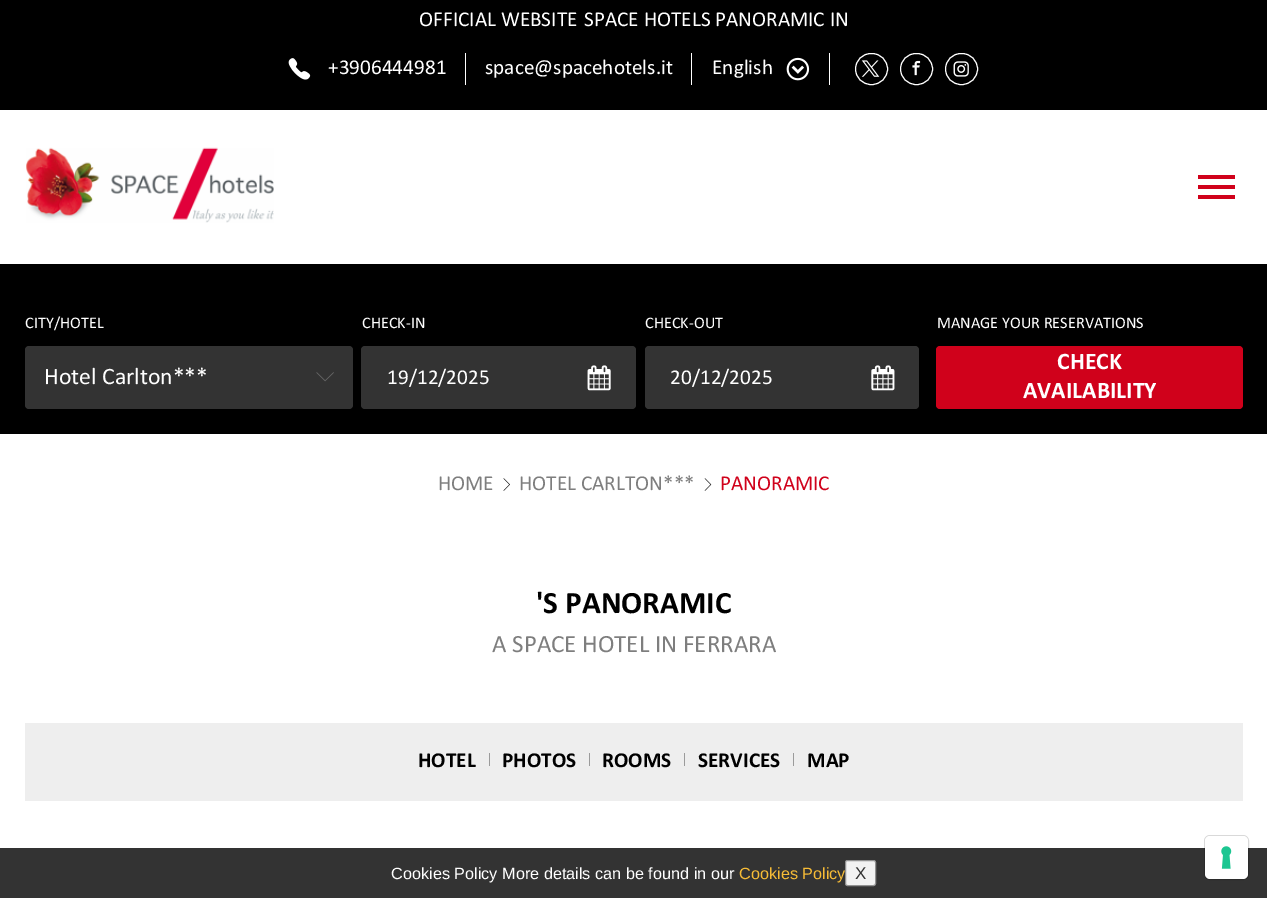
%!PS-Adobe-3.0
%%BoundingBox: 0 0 1267 898
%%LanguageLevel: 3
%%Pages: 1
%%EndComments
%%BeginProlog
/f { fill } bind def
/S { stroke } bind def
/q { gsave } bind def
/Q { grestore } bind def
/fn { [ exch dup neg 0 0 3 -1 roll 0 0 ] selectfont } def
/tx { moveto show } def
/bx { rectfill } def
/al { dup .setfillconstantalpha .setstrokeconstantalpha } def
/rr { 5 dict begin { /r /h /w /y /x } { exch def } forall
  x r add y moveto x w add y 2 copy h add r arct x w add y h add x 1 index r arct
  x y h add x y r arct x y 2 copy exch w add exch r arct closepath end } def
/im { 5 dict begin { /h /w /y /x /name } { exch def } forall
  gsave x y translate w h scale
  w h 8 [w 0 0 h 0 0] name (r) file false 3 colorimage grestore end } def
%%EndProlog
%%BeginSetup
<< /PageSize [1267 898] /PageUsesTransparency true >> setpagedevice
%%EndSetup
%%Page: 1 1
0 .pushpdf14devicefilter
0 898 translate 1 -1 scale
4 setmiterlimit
1 setgray
0 0 1267 898 bx
0 setgray
0 0 1267 110 bx
/Calibri-Regular 21.25 fn
1 setgray
(OFFICIAL WEBSITE) 419 26 tx
(SPACE HOTELS PANORAMIC IN) 584 26 tx
(image0.raw) 288 58 23 22 im
(+3906444981) 328 74 tx
465 53 1 32 bx
(space@spacehotels.it) 485 74 tx
691 53 1 32 bx
(English) 712 74 tx
(image1.raw) 786 57 24 24 im
829 53 1 32 bx
855.5 53.5 32 31 15.5 rr S
(image2.raw) 861 60 19 17 im
900.5 53.5 32 31 15.5 rr S
(image3.raw) 912 60 9 16 im
945.5 53.5 32 31 15.5 rr S
(image4.raw) 953 61 16 16 im
(image5.raw) 26 147 248 76 im
0.816 0.004 0.106 setrgbcolor
1198 175 37 4 bx
1198 185 37 4 bx
1198 195 37 4 bx
0 setgray
0 264 1267 170 bx
/Calibri-Regular 16.25 fn
1 setgray
(CITY/HOTEL) 25 328 tx
0.2 setgray
25 346 328 63 4 rr f
/Calibri-Regular 23.75 fn
1 setgray
(Hotel Carlton***) 44 384 tx
(image6.raw) 316 372 18 10 im
/Calibri-Regular 16.25 fn
(CHECK-IN) 362 328 tx
0.2 setgray
361 346 275 63 4 rr f
/Calibri-Regular 21.25 fn
1 setgray
(19/12/2025) 387 384 tx
(image7.raw) 587 365 24 26 im
/Calibri-Regular 16.25 fn
(CHECK-OUT) 645 328 tx
0.2 setgray
645 346 274 63 4 rr f
/Calibri-Regular 21.25 fn
1 setgray
(20/12/2025) 670 384 tx
(image8.raw) 871 365 24 26 im
/Calibri-Regular 16.25 fn
(MANAGE YOUR RESERVATIONS) 937 328 tx
0.816 0.004 0.106 setrgbcolor
936 346 307 63 4 rr f
/Calibri-Bold 23.75 fn
1 setgray
(CHECK) 1057 369 tx
(AVAILABILITY) 1023 398 tx
/Calibri-Regular 21.25 fn
0.494 setgray
(HOME) 438 490 tx
(image9.raw) 503 478 7 13 im
(HOTEL CARLTON***) 519 490 tx
(image10.raw) 704 478 8 13 im
0.816 0.004 0.106 setrgbcolor
(PANORAMIC) 720 490 tx
/Calibri-Bold 31.25 fn
0 setgray
('S PANORAMIC) 536 613 tx
/Calibri-Regular 25 fn
0.494 setgray
(A SPACE HOTEL IN FERRARA) 492 652 tx
0.933 setgray
25 723 1218 78 bx
/Calibri-Bold 21.25 fn
0 setgray
(HOTEL) 418 767 tx
0.608 setgray
489 753 1 13 bx
0 setgray
(PHOTOS) 502 767 tx
0.608 setgray
589 753 1 13 bx
0 setgray
(ROOMS) 602 767 tx
0.608 setgray
684 753 1 13 bx
0 setgray
(SERVICES) 698 767 tx
0.608 setgray
793 753 1 13 bx
0 setgray
(MAP) 807 767 tx
0.2 setgray
0 848 1267 50 bx
/LiberationSans-Regular 16.25 fn
1 setgray
(Cookies Policy More details can be found in our) 391 879 tx
0.969 0.737 0.212 setrgbcolor
(Cookies Policy) 739 879 tx
0.949 setgray
845.5 860.5 30 25 2 rr q f Q
0.569 setgray
S
/LiberationSans-Regular 17 fn
0.2 setgray
(X) 855 879 tx
0.15 al
0 setgray
1204.5 835.5 44 44 5.5 rr S
1 al
1 setgray
1205 836 43 43 5 rr f
(image11.raw) 1221 846 11 23 im
.poppdf14devicefilter showpage
%%EOF
